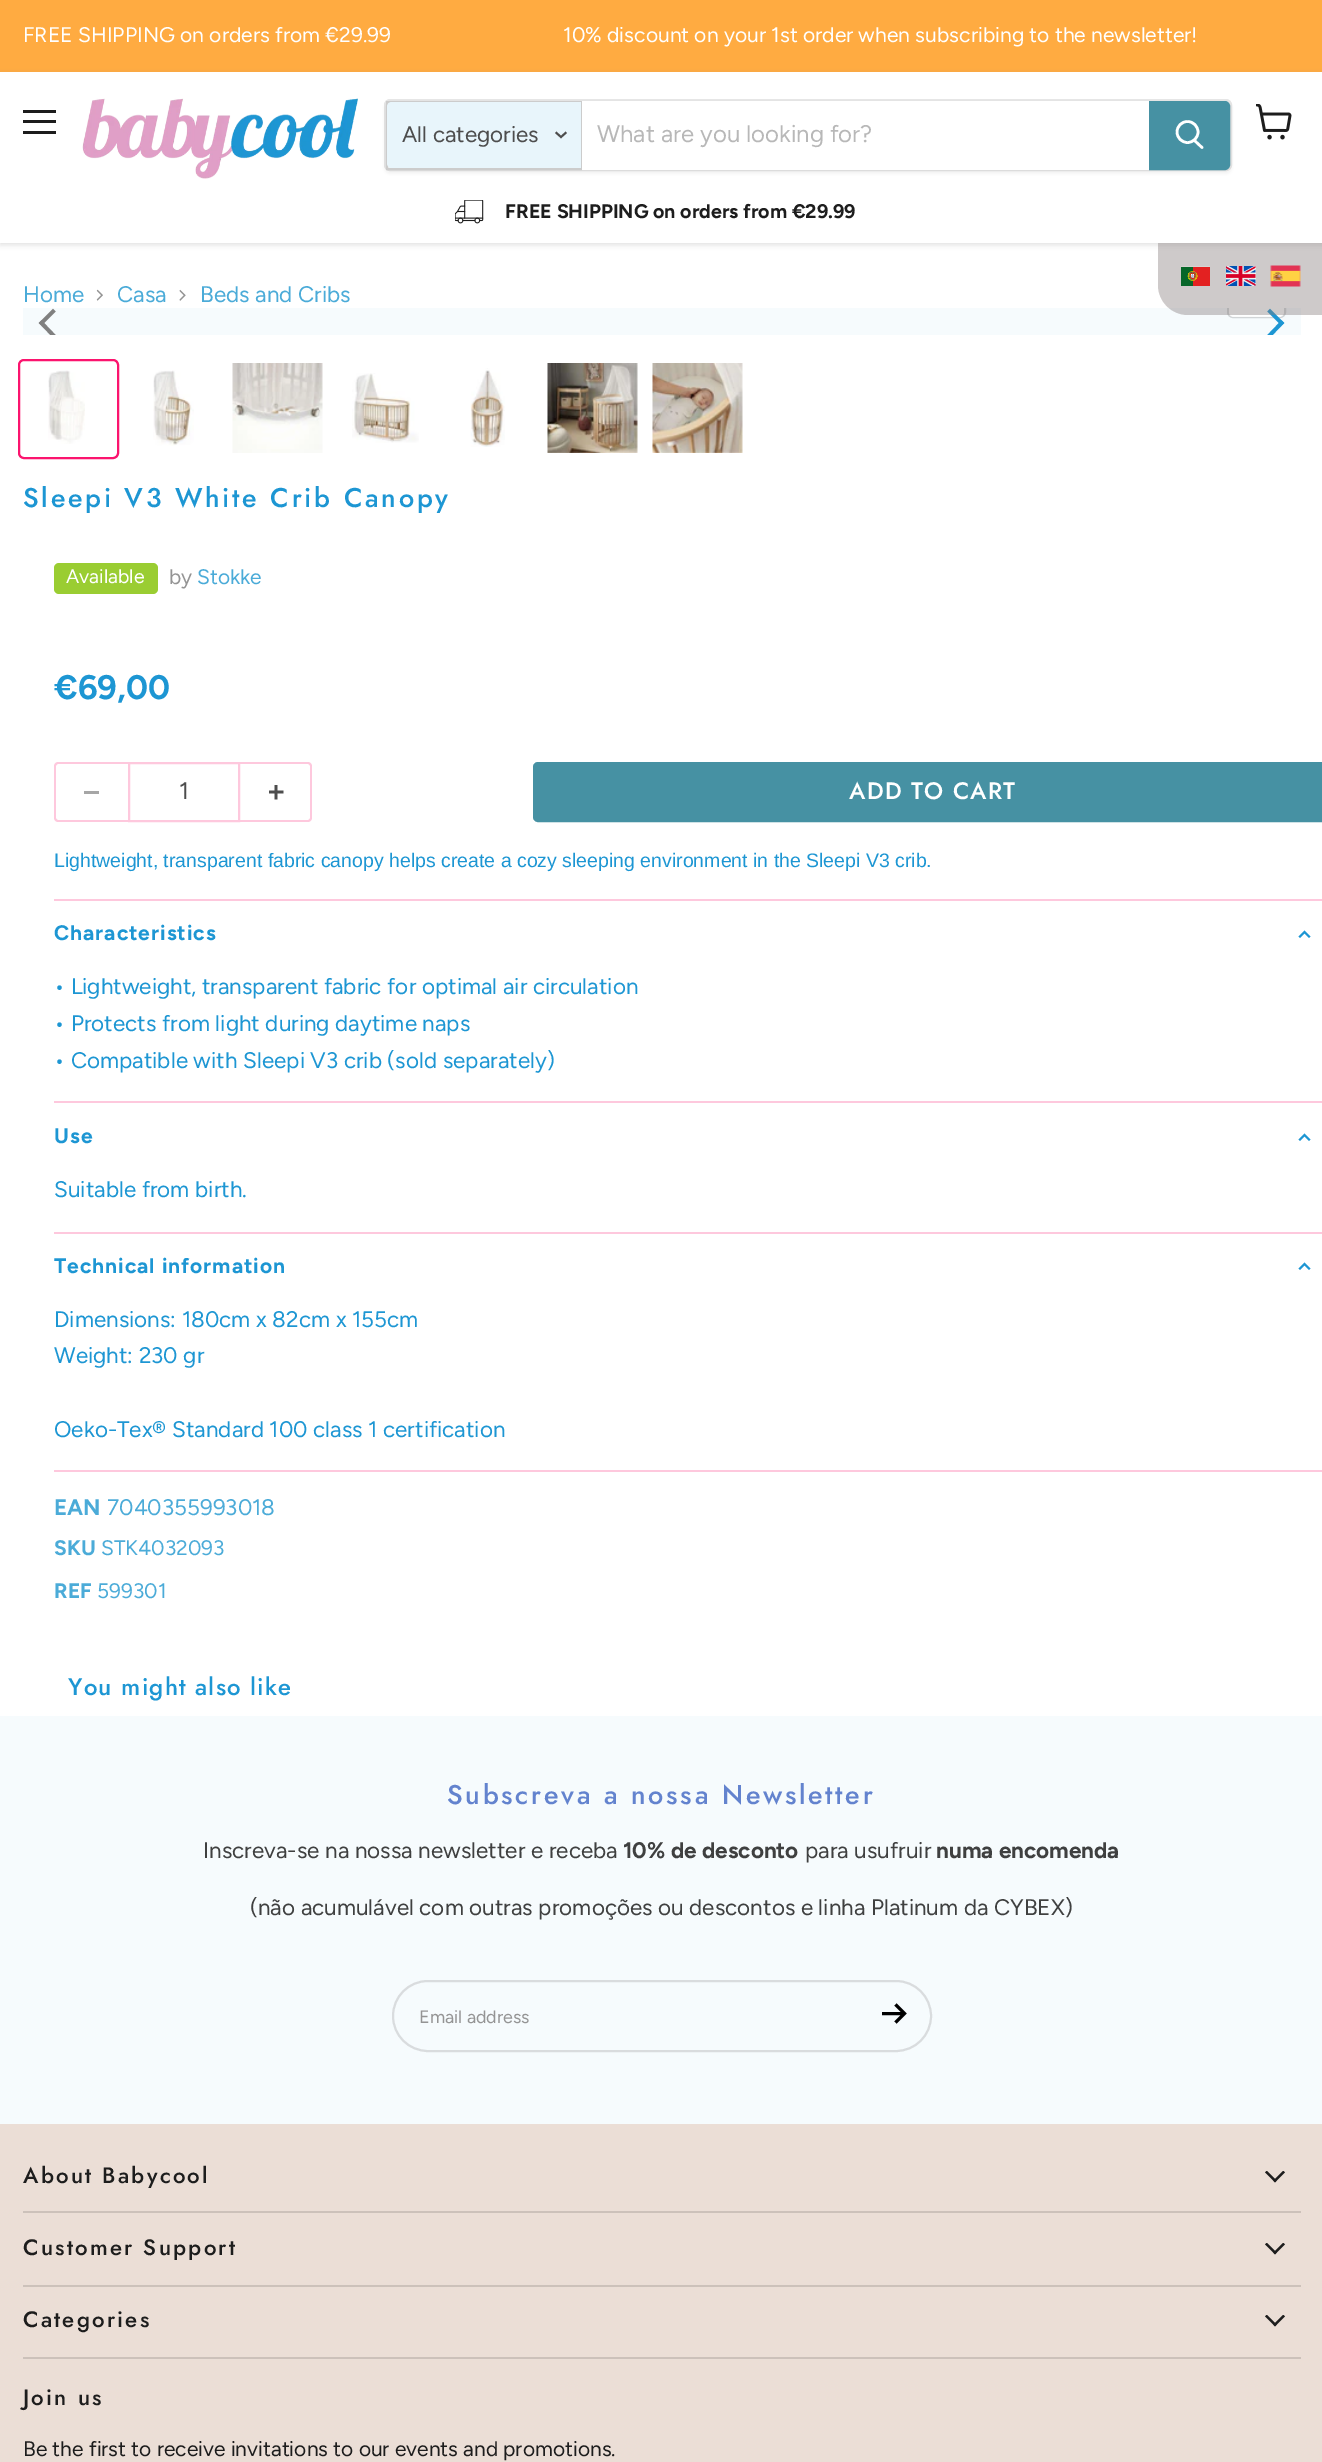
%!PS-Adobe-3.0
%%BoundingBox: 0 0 1322 2462
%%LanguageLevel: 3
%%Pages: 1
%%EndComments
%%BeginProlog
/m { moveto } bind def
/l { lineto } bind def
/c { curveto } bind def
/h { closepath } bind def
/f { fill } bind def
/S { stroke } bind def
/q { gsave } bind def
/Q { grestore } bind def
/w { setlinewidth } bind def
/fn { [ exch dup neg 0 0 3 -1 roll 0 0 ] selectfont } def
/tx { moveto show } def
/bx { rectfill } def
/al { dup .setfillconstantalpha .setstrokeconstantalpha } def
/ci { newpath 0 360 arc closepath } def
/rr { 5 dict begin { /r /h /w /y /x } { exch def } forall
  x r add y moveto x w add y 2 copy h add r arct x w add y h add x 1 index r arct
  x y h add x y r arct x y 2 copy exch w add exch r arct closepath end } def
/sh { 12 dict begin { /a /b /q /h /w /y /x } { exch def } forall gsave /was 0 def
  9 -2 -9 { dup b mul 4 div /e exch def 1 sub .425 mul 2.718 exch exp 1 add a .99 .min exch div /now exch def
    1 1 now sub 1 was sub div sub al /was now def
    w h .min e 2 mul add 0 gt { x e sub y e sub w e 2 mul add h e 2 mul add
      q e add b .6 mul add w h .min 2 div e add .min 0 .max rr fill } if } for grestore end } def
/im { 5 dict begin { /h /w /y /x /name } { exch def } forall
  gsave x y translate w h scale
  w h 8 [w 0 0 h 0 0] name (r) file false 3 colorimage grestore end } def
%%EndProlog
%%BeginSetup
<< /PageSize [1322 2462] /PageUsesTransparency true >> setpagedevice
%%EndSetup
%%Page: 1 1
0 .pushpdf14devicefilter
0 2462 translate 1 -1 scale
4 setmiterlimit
1 setgray
0 0 1322 2462 bx
1 0.671 0.255 setrgbcolor
0 0 1322 72 bx
/Figtree-Regular 21.1 fn
1 setgray
(FREE SHIPPING on orders from €29.99) 23 42 tx
(10% discount on your 1st order when subscribing to the newsletter!) 563 42 tx
q
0 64 m 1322 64 l 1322 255 l 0 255 l h 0 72 m 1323 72 l 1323 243 l 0 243 l h eoclip newpath
0.502 setgray
0 74 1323 171 0 3 0.25 sh
Q
0.114 setgray
23 110 33 3 bx
23 120 33 3 bx
23 131 33 3 bx
(image0.raw) 82 98 276 81 im
0.502 setgray
384 102 848 72 6 2 0.11 sh
0.2 al
2 w
385 100 846 70 5 rr S
1 al
0.8 setgray
387 102 194 67 rectstroke
0.91 0.961 0.984 setrgbcolor
392 102 m 581 102 l 581 168 l 392 168 l 389 168 387 166 387 163 c 387 107 l 387 104 389 102 392 102 c h f
/Figtree-Regular 22.5 fn
0.302 setgray
(All categories) 402 142 tx
1.9 w
2 setlinecap
561 137 m 565.5 133 l 561 137 m 556.5 133 l S
1 setgray
582 101 567 69 bx
/Figtree-Regular 24 fn
0.722 setgray
(What are you looking for?) 597 142 tx
0.275 0.569 0.639 setrgbcolor
1150 102 m 1225 102 l 1227 102 1229 104 1229 106 c 1229 165 l 1229 167 1227 169 1225 169 c 1150 169 l h q f Q
2 w
0 setlinecap
S
1 setgray
2.6 w
1 setlinecap
1202 147.5 m 1194.5 140.5 l S
0 setlinecap
1187.5 132 10.5 ci S
(image1.raw) 455 200 29 24 im
/Figtree-Bold 19.7 fn
0.114 setgray
(FREE SHIPPING on orders from €29.99) 505 218 tx
(image2.raw) 1256 104 36 36 im
0.965 0.984 0.992 setrgbcolor
23 308 1278 27 bx
q
23 308 1278 27 rectclip
0.82 0.835 0.843 setrgbcolor
2 w
1228 277 57 40 5 rr S
Q
0.9 al
1 setgray
1229 308 m 1284 308 l 1284 312 l 1284 315 1282 317 1279 317 c 1234 317 l 1231 317 1229 315 1229 312 c h f
1 al
0.114 0.588 0.827 setrgbcolor
3.8 w
2 setlinecap
1281.5 323 m 1270 311.5 l S
0.4 al
0.518 0.478 0.478 setrgbcolor
1158 243 m 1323 243 l 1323 315 l 1188 315 l 1171.5 315 1158 301.5 1158 285 c h f
1 al
(image3.raw) 1181 266 29 20 im
(image4.raw) 1226 266 30 20 im
(image5.raw) 1270 265 31 22 im
/Figtree-Regular 22.5 fn
0.294 0.671 0.847 setrgbcolor
(Home) 23 302 tx
(image6.raw) 96 289 7 12 im
(Casa) 117 302 tx
(image7.raw) 179 289 7 12 im
(Beds and Cribs) 200 302 tx
q
23 308 1278 27 rectclip
0.502 setgray
41.5 323 m 53 335 l S
Q
0.502 setgray
41.5 323 m 53 311.5 l S
q
23 308 1278 27 rectclip
0.114 0.588 0.827 setrgbcolor
1281.5 323 m 1270 335 l S
Q
0.984 0.078 0.431 setrgbcolor
2 w
0 setlinecap
19 360 99 98 5 rr S
(image8.raw) 48 370 37 74 im
(image9.raw) 153 370 41 76 im
(image10.raw) 232 363 91 90 im
(image11.raw) 352 373 67 70 im
(image12.raw) 470 368 35 79 im
(image13.raw) 547 363 91 90 im
(image14.raw) 652 363 91 90 im
/Jost-Medium 27 fn
0.114 0.588 0.827 setrgbcolor
23 507 m 2.7 0 (Sleepi V3 White Crib Canopy) ashow
0.604 0.804 0.196 setrgbcolor
54 563 104 31 5 rr f
/Figtree-Regular 19.5 fn
1 setgray
(Available) 66 583 tx
/Figtree-Regular 21 fn
0.58 setgray
(by) 169 584 tx
0.294 0.671 0.847 setrgbcolor
(Stokke) 197 584 tx
/Figtree-Bold 34 fn
0.114 0.588 0.827 setrgbcolor
(€69,00) 54 699 tx
0.996 0.784 0.867 setrgbcolor
58 762 m 128 762 l 128 822 l 58 822 l 56 822 54 820 54 818 c 54 766 l 54 764 56 762 58 762 c h 58 764 m 128 764 l 128 820 l 58 820 l 57 820 56 819 56 818 c 56 766 l 56 765 57 764 58 764 c h eofill
0.651 setgray
84 791 15 3 bx
0.996 0.784 0.867 setrgbcolor
129 763 110 58 rectstroke
/Figtree-Regular 23.75 fn
0.302 setgray
(1) 179 799 tx
0.996 0.784 0.867 setrgbcolor
240 762 m 308 762 l 310 762 312 764 312 766 c 312 818 l 312 820 310 822 308 822 c 240 822 l h 240 764 m 308 764 l 309 764 310 765 310 766 c 310 818 l 310 819 309 820 308 820 c 240 820 l h eofill
(image15.raw) 269 785 15 15 im
0.275 0.569 0.639 setrgbcolor
534 763 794 58 4 rr q f Q
S
/Jost-Medium 23.75 fn
1 setgray
849 799 m 1.25 0 (ADD TO CART) ashow
/LiberationSans-Regular 19.5 fn
0.114 0.588 0.827 setrgbcolor
(Lightweight, transparent fabric canopy helps create a cozy sleeping environment in the Sleepi V3 crib.) 54 867 tx
0.996 0.784 0.867 setrgbcolor
54 899 1268 2 bx
54 1101 1268 2 bx
/Figtree-Bold 21 fn
0.114 0.588 0.827 setrgbcolor
54 940 m 1 0 (Characteristics) ashow
1.9 w
2 setlinecap
1304.5 932 m 1300 936.5 l 1304.5 932 m 1309 936.5 l S
/Figtree-Regular 22.5 fn
(• Lightweight, transparent fabric for optimal air circulation) 54 994 tx
(• Protects from light during daytime naps) 54 1031 tx
(• Compatible with Sleepi V3 crib \(sold separately\)) 54 1068 tx
0.996 0.784 0.867 setrgbcolor
54 1232 1268 2 bx
/Figtree-Bold 21 fn
0.114 0.588 0.827 setrgbcolor
54 1143 m 1 0 (Use) ashow
1304.5 1135 m 1300 1139.5 l 1304.5 1135 m 1309 1139.5 l S
/Figtree-Regular 22.5 fn
(Suitable from birth.) 54 1197 tx
0.996 0.784 0.867 setrgbcolor
54 1470 1268 2 bx
/Figtree-Bold 21 fn
0.114 0.588 0.827 setrgbcolor
54 1273 m 1 0 (Technical information) ashow
1304.5 1264 m 1300 1268.5 l 1304.5 1264 m 1309 1268.5 l S
/Figtree-Regular 22.5 fn
(Dimensions: 180cm x 82cm x 155cm) 54 1327 tx
(Weight: 230 gr) 54 1363 tx
(Oeko-Tex® Standard 100 class 1 certification) 54 1437 tx
/Figtree-Bold 22.5 fn
0.294 0.671 0.847 setrgbcolor
(EAN) 54 1515 tx
/Figtree-Regular 22.5 fn
(7040355993018) 107 1515 tx
/Figtree-Bold 21 fn
(SKU) 54 1555 tx
/Figtree-Regular 21 fn
(STK4032093) 101 1555 tx
/Figtree-Bold 21 fn
(REF) 54 1598 tx
/Figtree-Regular 21 fn
(599301) 97 1598 tx
/Jost-Medium 24 fn
0.114 0.588 0.827 setrgbcolor
68 1695 m 1.25 0 (You might also like) ashow
0.965 0.984 0.992 setrgbcolor
0 1716 1322 408 bx
/Jost-Medium 27 fn
0.388 0.514 0.808 setrgbcolor
447 1804 m 2.7 0 (Subscreva a nossa Newsletter) ashow
/Figtree-Regular 22.5 fn
0.247 0.251 0.251 setrgbcolor
(Inscreva-se na nossa newsletter e receba) 203 1858 tx
/Figtree-Bold 22.5 fn
(10% de desconto) 623 1858 tx
/Figtree-Regular 22.5 fn
(para usufruir) 805 1858 tx
/Figtree-Bold 22.5 fn
(numa encomenda) 936 1858 tx
/Figtree-Regular 22.5 fn
(\(não acumulável com outras promoções ou descontos e linha Platinum da CYBEX\)) 250 1915 tx
0.851 0.863 0.871 setrgbcolor
2 w
0 setlinecap
393 1981 538 70 35 rr S
/Figtree-Regular 18 fn
0.58 setgray
(Email address) 419 2023 tx
0 setgray
3 w
882 2013.5 m 904.5 2013.5 l 895.5 2004.5 m 904.5 2013.5 l 895.5 2022.5 l S
0.922 0.871 0.839 setrgbcolor
0 2124 1322 338 bx
0.8 0.757 0.729 setrgbcolor
23 2211 1278 2 bx
/Jost-Medium 22.25 fn
0.114 setgray
23 2183 m 2.25 0 (About Babycool) ashow
(image16.raw) 1265 2171 20 12 im
0.8 0.757 0.729 setrgbcolor
23 2285 1278 2 bx
0.114 setgray
23 2255 m 2.25 0 (Customer Support) ashow
(image16.raw) 1265 2243 20 12 im
0.8 0.757 0.729 setrgbcolor
23 2357 1278 2 bx
0.114 setgray
23 2327 m 2.25 0 (Categories) ashow
(image16.raw) 1265 2315 20 12 im
23 2405 m 2.25 0 (Join us) ashow
/Figtree-Regular 21 fn
(Be the first to receive invitations to our events and promotions.) 23 2456 tx
.poppdf14devicefilter showpage
%%EOF
